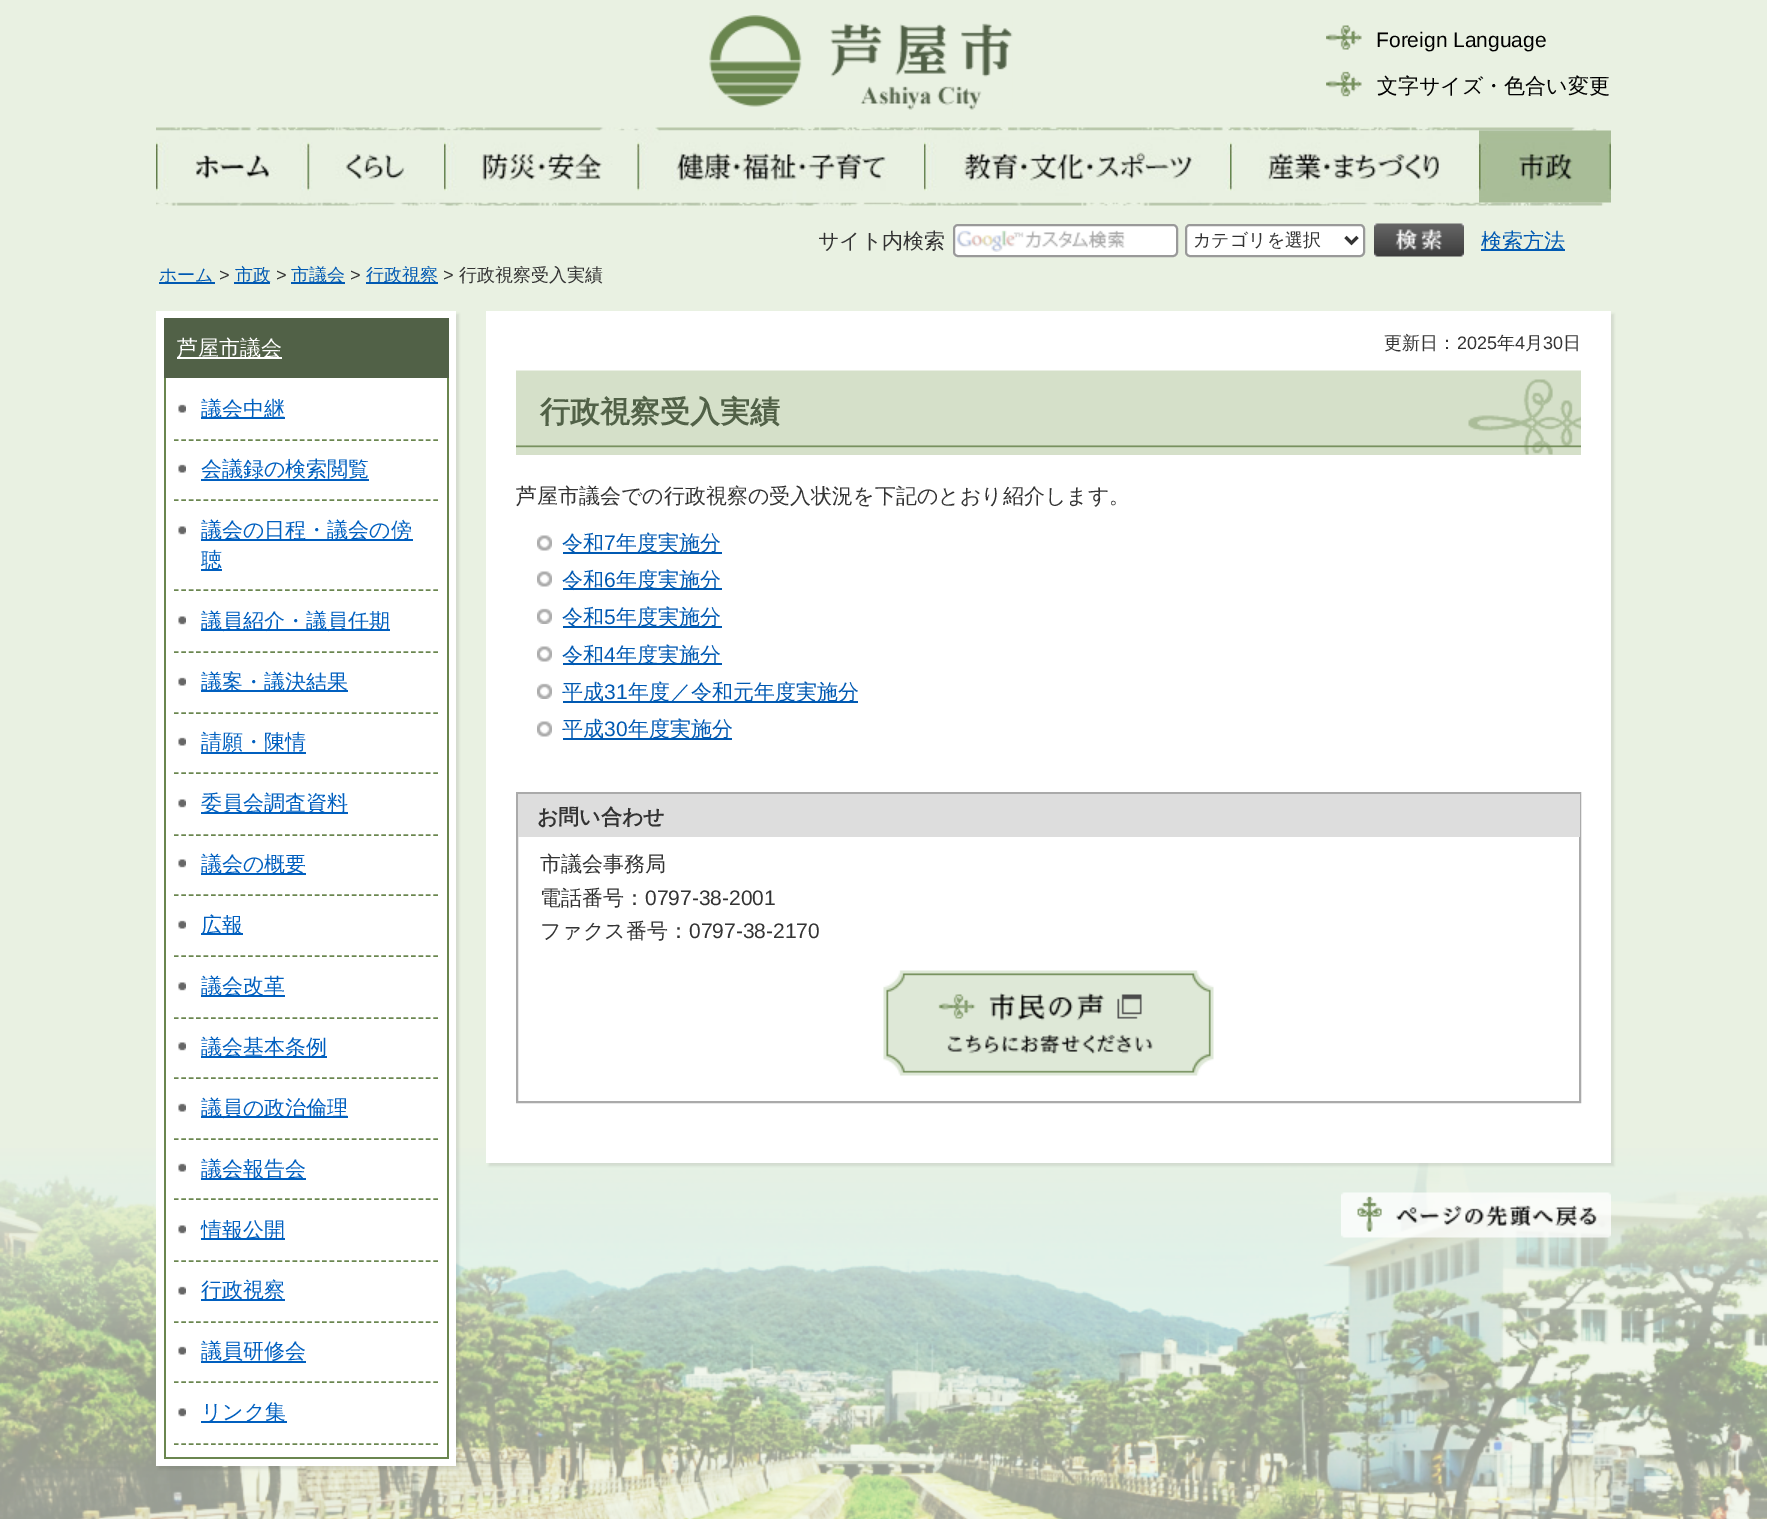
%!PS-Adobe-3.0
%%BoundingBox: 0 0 1767 1519
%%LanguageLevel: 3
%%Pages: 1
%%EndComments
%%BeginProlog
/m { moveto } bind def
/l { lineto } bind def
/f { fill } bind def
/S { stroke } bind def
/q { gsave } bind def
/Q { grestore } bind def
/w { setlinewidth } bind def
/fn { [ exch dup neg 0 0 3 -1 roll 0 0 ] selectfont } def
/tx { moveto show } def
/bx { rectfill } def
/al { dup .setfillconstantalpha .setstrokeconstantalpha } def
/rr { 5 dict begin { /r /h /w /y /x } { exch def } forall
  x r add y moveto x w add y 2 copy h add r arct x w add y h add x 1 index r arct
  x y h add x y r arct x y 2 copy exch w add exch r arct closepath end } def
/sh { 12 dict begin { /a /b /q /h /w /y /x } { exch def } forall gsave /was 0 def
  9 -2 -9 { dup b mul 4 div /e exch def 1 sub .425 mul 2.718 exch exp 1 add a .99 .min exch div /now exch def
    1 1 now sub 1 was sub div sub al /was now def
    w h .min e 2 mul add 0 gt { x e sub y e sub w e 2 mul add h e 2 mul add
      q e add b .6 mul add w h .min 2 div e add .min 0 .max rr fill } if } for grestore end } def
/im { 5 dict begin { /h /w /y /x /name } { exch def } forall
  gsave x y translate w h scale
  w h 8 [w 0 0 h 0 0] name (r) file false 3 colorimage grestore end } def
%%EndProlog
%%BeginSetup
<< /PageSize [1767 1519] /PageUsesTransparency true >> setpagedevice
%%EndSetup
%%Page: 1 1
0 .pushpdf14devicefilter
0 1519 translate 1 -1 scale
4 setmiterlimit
0.914 0.945 0.886 setrgbcolor
0 0 1767 1519 bx
(image0.raw) 0 1148 1767 371 im
(image1.raw) 709 15 304 95 im
(image2.raw) 1326 25 36 26 im
/LiberationSans-Regular 21 fn
0 setgray
(Foreign Language) 1376 47 tx
(image3.raw) 1326 71 36 26 im
/WenQuanYiZenHei-Medium 21 fn
(文字サイズ・色合い変更) 1377 93 tx
(image4.raw) 156 127 1448 79 im
(image5.raw) 156 130 152 73 im
(image6.raw) 307 130 137 73 im
(image7.raw) 444 130 194 73 im
(image8.raw) 637 130 287 73 im
(image9.raw) 924 130 306 73 im
(image10.raw) 1230 130 249 73 im
(image11.raw) 1479 130 132 73 im
0.2 setgray
(サイト内検索) 818 248 tx
1 setgray
953 224 225 33 5 rr f
(image12.raw) 956 230 169 22 im
0.6 setgray
2 w
954 225 223 31 4 rr S
1 setgray
1186 225 178 31 4 rr q f Q
0.6 setgray
S
0.2 setgray
3 w
1345.5 237 m 1351.5 243 l 1357.5 237 l S
/WenQuanYiZenHei-Medium 18 fn
(カテゴリを選択) 1193 246 tx
(image13.raw) 1374 223 90 34 im
0 0.349 0.698 setrgbcolor
1481 249 84 2 bx
/WenQuanYiZenHei-Medium 21 fn
(検索方法) 1481 248 tx
159 282 56 2 bx
/WenQuanYiZenHei-Medium 18 fn
(ホーム) 159 281 tx
/LiberationSans-Regular 18 fn
0.2 setgray
(>) 219 281 tx
0 0.349 0.698 setrgbcolor
234 282 36 2 bx
/WenQuanYiZenHei-Medium 18 fn
(市政) 235 281 tx
/LiberationSans-Regular 18 fn
0.2 setgray
(>) 276 281 tx
0 0.349 0.698 setrgbcolor
291 282 54 2 bx
/WenQuanYiZenHei-Medium 18 fn
(市議会) 291 281 tx
/LiberationSans-Regular 18 fn
0.2 setgray
(>) 350 281 tx
0 0.349 0.698 setrgbcolor
366 282 72 2 bx
/WenQuanYiZenHei-Medium 18 fn
(行政視察) 366 281 tx
/LiberationSans-Regular 18 fn
0.2 setgray
(>) 443 281 tx
/WenQuanYiZenHei-Medium 18 fn
(行政視察受入実績) 459 281 tx
0 setgray
159 314 300 1155 0 1 0.08 sh
1 setgray
156 311 300 1155 bx
0.318 0.38 0.278 setrgbcolor
164 318 285 60 bx
1 setgray
177 357 105 2 bx
/WenQuanYiZenHei-Medium 21 fn
(芦屋市議会) 177 355 tx
0.416 0.525 0.31 setrgbcolor
447 378 2 1080 bx
164 1457 285 2 bx
164 378 2 1080 bx
(image14.raw) 178 404 8 9 im
1.5 w
[4.5 2.91] 0 setdash
174 440 m 438 440 l S
0 0.373 0.749 setrgbcolor
201 417 84 2 bx
(議会中継) 201 416 tx
(image14.raw) 178 464 8 9 im
0.416 0.525 0.31 setrgbcolor
174 500 m 438 500 l S
0 0.373 0.749 setrgbcolor
(会議録の検索閲覧) 201 476 tx
201 479 168 2 bx
(image15.raw) 178 526 8 9 im
0.416 0.525 0.31 setrgbcolor
174 590 m 438 590 l S
0 0.373 0.749 setrgbcolor
201 539 212 2 bx
(議会の日程・議会の傍) 201 537 tx
201 569 21 2 bx
(聴) 201 567 tx
(image15.raw) 178 616 8 9 im
0.416 0.525 0.31 setrgbcolor
174 652 m 438 652 l S
0 0.373 0.749 setrgbcolor
201 629 189 2 bx
(議員紹介・議員任期) 201 628 tx
(image14.raw) 178 677 8 9 im
0.416 0.525 0.31 setrgbcolor
174 713 m 438 713 l S
0 0.373 0.749 setrgbcolor
201 690 147 2 bx
(議案・議決結果) 201 689 tx
(image14.raw) 178 737 8 9 im
0.416 0.525 0.31 setrgbcolor
174 773 m 438 773 l S
0 0.373 0.749 setrgbcolor
201 752 105 2 bx
(請願・陳情) 201 749 tx
(image15.raw) 178 799 8 9 im
0.416 0.525 0.31 setrgbcolor
174 835 m 438 835 l S
0 0.373 0.749 setrgbcolor
201 812 147 2 bx
(委員会調査資料) 201 810 tx
(image15.raw) 178 859 8 9 im
0.416 0.525 0.31 setrgbcolor
174 895 m 438 895 l S
0 0.373 0.749 setrgbcolor
201 873 105 2 bx
(議会の概要) 201 871 tx
(image14.raw) 178 920 8 9 im
0.416 0.525 0.31 setrgbcolor
174 956 m 438 956 l S
0 0.373 0.749 setrgbcolor
201 933 42 2 bx
(広報) 201 932 tx
(image15.raw) 178 982 8 9 im
0.416 0.525 0.31 setrgbcolor
174 1018 m 438 1018 l S
0 0.373 0.749 setrgbcolor
201 995 84 2 bx
(議会改革) 201 993 tx
(image15.raw) 178 1042 8 9 im
0.416 0.525 0.31 setrgbcolor
174 1078 m 438 1078 l S
0 0.373 0.749 setrgbcolor
201 1056 126 2 bx
(議会基本条例) 201 1054 tx
(image14.raw) 178 1103 8 9 im
0.416 0.525 0.31 setrgbcolor
174 1139 m 438 1139 l S
0 0.373 0.749 setrgbcolor
201 1116 147 2 bx
(議員の政治倫理) 201 1115 tx
(image14.raw) 178 1163 8 9 im
0.416 0.525 0.31 setrgbcolor
174 1199 m 438 1199 l S
0 0.373 0.749 setrgbcolor
201 1178 105 2 bx
(議会報告会) 201 1176 tx
(image15.raw) 178 1225 8 9 im
0.416 0.525 0.31 setrgbcolor
174 1261 m 438 1261 l S
0 0.373 0.749 setrgbcolor
201 1238 84 2 bx
(情報公開) 201 1237 tx
(image14.raw) 178 1286 8 9 im
0.416 0.525 0.31 setrgbcolor
174 1322 m 438 1322 l S
0 0.373 0.749 setrgbcolor
201 1299 84 2 bx
(行政視察) 201 1297 tx
(image14.raw) 178 1346 8 9 im
0.416 0.525 0.31 setrgbcolor
174 1382 m 438 1382 l S
0 0.373 0.749 setrgbcolor
201 1361 105 2 bx
(議員研修会) 201 1358 tx
(image15.raw) 178 1408 8 9 im
0.416 0.525 0.31 setrgbcolor
174 1444 m 438 1444 l S
0 0.373 0.749 setrgbcolor
201 1421 86 2 bx
(リンク集) 201 1419 tx
0 setgray
489 314 1125 852 0 1 0.08 sh
1 setgray
486 311 1125 852 bx
/WenQuanYiZenHei-Medium 18 fn
0.2 setgray
(更新日：) 1384 349 tx
/LiberationSans-Regular 18 fn
(2025) 1457 349 tx
/WenQuanYiZenHei-Medium 18 fn
(年) 1497 349 tx
/LiberationSans-Regular 18 fn
(4) 1515 349 tx
/WenQuanYiZenHei-Medium 18 fn
(月) 1525 349 tx
/LiberationSans-Regular 18 fn
(30) 1543 349 tx
/WenQuanYiZenHei-Medium 18 fn
(日) 1563 349 tx
0.835 0.878 0.788 setrgbcolor
516 454 1065 1 bx
(image16.raw) 516 370 1065 85 im
/WenQuanYiZenHei-Bold 30 fn
0.318 0.38 0.278 setrgbcolor
(行政視察受入実績) 540 422 tx
/WenQuanYiZenHei-Medium 21 fn
0.2 setgray
(芦屋市議会での行政視察の受入状況を下記のとおり紹介します。) 516 503 tx
(image17.raw) 537 535 15 16 im
0 0.349 0.698 setrgbcolor
563 552 159 2 bx
(令和) 562 550 tx
/LiberationSans-Regular 21 fn
(7) 604 550 tx
/WenQuanYiZenHei-Medium 21 fn
(年度実施分) 616 550 tx
(image17.raw) 537 571 15 16 im
563 588 159 2 bx
(令和) 562 587 tx
/LiberationSans-Regular 21 fn
(6) 604 587 tx
/WenQuanYiZenHei-Medium 21 fn
(年度実施分) 616 587 tx
(image18.raw) 537 608 15 16 im
563 626 159 2 bx
(令和) 562 624 tx
/LiberationSans-Regular 21 fn
(5) 604 624 tx
/WenQuanYiZenHei-Medium 21 fn
(年度実施分) 616 624 tx
(image17.raw) 537 646 15 16 im
563 663 159 2 bx
(令和) 562 662 tx
/LiberationSans-Regular 21 fn
(4) 604 662 tx
/WenQuanYiZenHei-Medium 21 fn
(年度実施分) 616 662 tx
(image18.raw) 537 683 15 16 im
563 701 295 2 bx
(平成) 562 699 tx
/LiberationSans-Regular 21 fn
(31) 604 699 tx
/WenQuanYiZenHei-Medium 21 fn
(年度／令和元年度実施分) 628 699 tx
(image17.raw) 537 721 15 16 im
563 738 169 2 bx
(平成) 562 736 tx
/LiberationSans-Regular 21 fn
(30) 604 736 tx
/WenQuanYiZenHei-Medium 21 fn
(年度実施分) 628 736 tx
0.667 setgray
2 w
[] 0 setdash
517 793 1063 309 rectstroke
0.867 setgray
518 794 1062 43 bx
/WenQuanYiZenHei-Bold 21 fn
0.2 setgray
(お問い合わせ) 537 824 tx
/WenQuanYiZenHei-Medium 21 fn
(市議会事務局) 540 871 tx
(電話番号：) 540 905 tx
/LiberationSans-Regular 21 fn
(0797-38-2001) 645 905 tx
/WenQuanYiZenHei-Medium 21 fn
(ファクス番号：) 540 938 tx
/LiberationSans-Regular 21 fn
(0797-38-2170) 689 938 tx
(image19.raw) 883 970 331 106 im
(image20.raw) 1341 1192 270 46 im
.poppdf14devicefilter showpage
%%EOF
